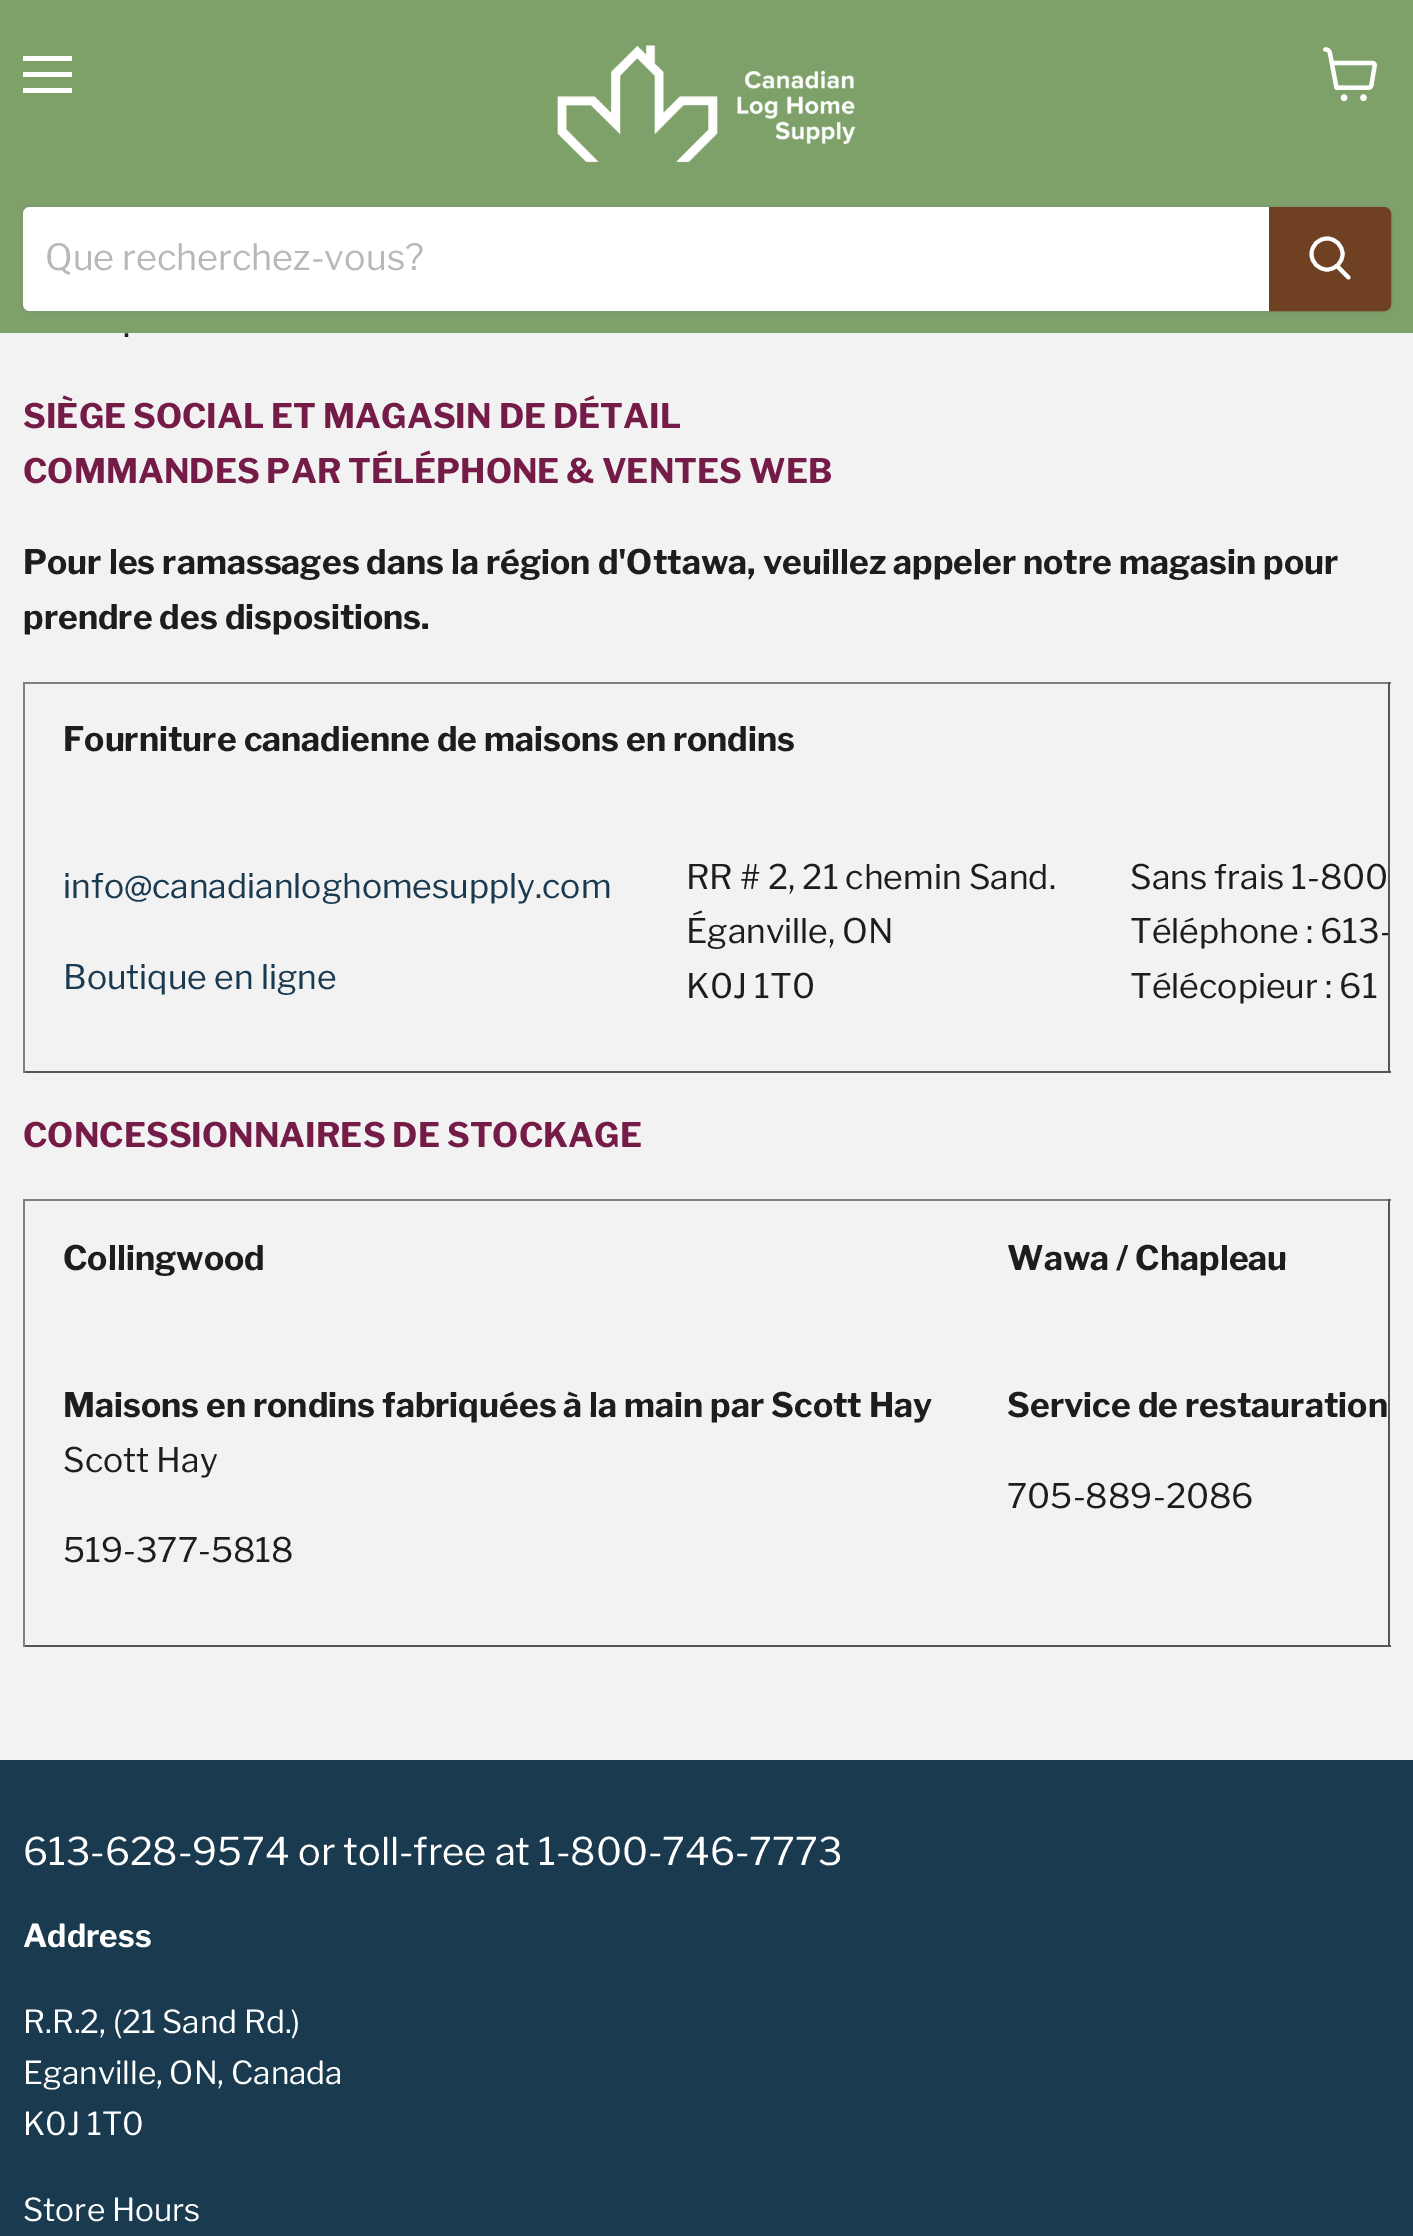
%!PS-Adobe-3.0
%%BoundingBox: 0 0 1413 2236
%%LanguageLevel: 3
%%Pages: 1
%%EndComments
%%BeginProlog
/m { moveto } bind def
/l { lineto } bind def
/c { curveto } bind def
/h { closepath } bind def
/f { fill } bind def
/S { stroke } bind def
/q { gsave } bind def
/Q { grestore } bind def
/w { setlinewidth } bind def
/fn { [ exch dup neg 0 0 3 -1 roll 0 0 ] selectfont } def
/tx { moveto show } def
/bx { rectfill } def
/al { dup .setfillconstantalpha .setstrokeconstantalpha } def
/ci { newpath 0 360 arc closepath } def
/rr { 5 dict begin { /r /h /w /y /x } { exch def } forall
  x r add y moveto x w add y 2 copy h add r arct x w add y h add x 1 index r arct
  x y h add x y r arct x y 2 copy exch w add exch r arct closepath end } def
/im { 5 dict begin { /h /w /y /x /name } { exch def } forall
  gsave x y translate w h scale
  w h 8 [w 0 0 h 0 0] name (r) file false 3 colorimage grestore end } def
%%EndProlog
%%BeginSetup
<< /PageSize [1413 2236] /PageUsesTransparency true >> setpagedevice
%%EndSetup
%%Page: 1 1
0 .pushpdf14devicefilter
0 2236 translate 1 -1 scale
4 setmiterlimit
0.949 0.949 0.953 setrgbcolor
0 0 1413 2236 bx
0.494 0.631 0.416 setrgbcolor
0 0 1413 333 bx
1 setgray
23 56 49 5 bx
23 72 49 5 bx
23 88 49 5 bx
(image0.raw) 1323 47 54 54 im
(image1.raw) 557 45 299 118 im
0.2 al
0.475 0.475 0.478 setrgbcolor
2 w
21 206 1371 106 8 rr S
1 al
1 setgray
30 207 m 1269 207 l 1269 311 l 30 311 l 26 311 23 308 23 304 c 23 214 l 23 210 26 207 30 207 c h f
/LibreFranklin-Regular 36 fn
0.722 setgray
(Que recherchez-vous?) 45 270 tx
0.439 0.251 0.133 setrgbcolor
1270 208 m 1384 208 l 1387.5 208 1390 210.5 1390 214 c 1390 304 l 1390 307.5 1387.5 310 1384 310 c 1270 310 l h q f Q
S
1 setgray
3.9 w
1 setlinecap
1348.5 277.5 m 1337.5 266.5 l S
0 setlinecap
1327 254 15.5 ci S
/LibreFranklin-Regular 33.75 fn
0.114 setgray
(.) 123 337 tx
/LibreFranklin-Bold 33.75 fn
0.455 0.106 0.278 setrgbcolor
(SIÈGE SOCIAL ET MAGASIN DE DÉTAIL) 23 428 tx
(COMMANDES PAR TÉLÉPHONE & VENTES WEB) 23 483 tx
0.114 setgray
(Pour les ramassages dans la région d'Ottawa, veuillez appeler notre magasin pour) 23 574 tx
(prendre des dispositions.) 23 629 tx
0.502 setgray
23 682 1368 2 bx
0.333 setgray
1388 682 2 391 bx
23 1071 1368 2 bx
0.502 setgray
23 682 2 391 bx
0.114 setgray
(Fourniture canadienne de maisons en rondins) 63 751 tx
/LibreFranklin-Regular 33.75 fn
0.102 0.231 0.31 setrgbcolor
(info@canadianloghomesupply.com) 63 898 tx
(Boutique en ligne) 63 989 tx
0.114 setgray
(RR # 2, 21 chemin Sand.) 686 889 tx
(Éganville, ON) 686 943 tx
(K0J 1T0) 686 998 tx
(Sans frais 1-800) 1130 889 tx
q
25 684 1363 387 rectclip
(Téléphone : 613-) 1130 943 tx
Q
(Télécopieur : 61) 1130 998 tx
/LibreFranklin-Bold 33.75 fn
0.455 0.106 0.278 setrgbcolor
(CONCESSIONNAIRES DE STOCKAGE) 23 1147 tx
0.502 setgray
23 1199 1368 2 bx
0.333 setgray
1388 1199 2 448 bx
23 1645 1368 2 bx
0.502 setgray
23 1199 2 448 bx
0.114 setgray
(Collingwood) 63 1270 tx
(Wawa / Chapleau) 1007 1270 tx
(Maisons en rondins fabriquées à la main par Scott Hay) 63 1417 tx
/LibreFranklin-Regular 33.75 fn
(Scott Hay) 63 1472 tx
(519-377-5818) 63 1562 tx
/LibreFranklin-Bold 33.75 fn
(Service de restauration) 1007 1417 tx
/LibreFranklin-Regular 33.75 fn
(705-889-2086) 1007 1508 tx
0.102 0.231 0.31 setrgbcolor
0 1760 1413 476 bx
/LibreFranklin-Regular 38 fn
1 setgray
(613-628-9574 or toll-free at 1-800-746-7773) 23 1865 tx
/LibreFranklin-Bold 31.6 fn
(Address) 23 1947 tx
/LibreFranklin-Regular 31.6 fn
(R.R.2, \(21 Sand Rd.\)) 23 2033 tx
(Eganville, ON, Canada) 23 2084 tx
(K0J 1T0) 23 2135 tx
(Store Hours) 23 2221 tx
.poppdf14devicefilter showpage
%%EOF
